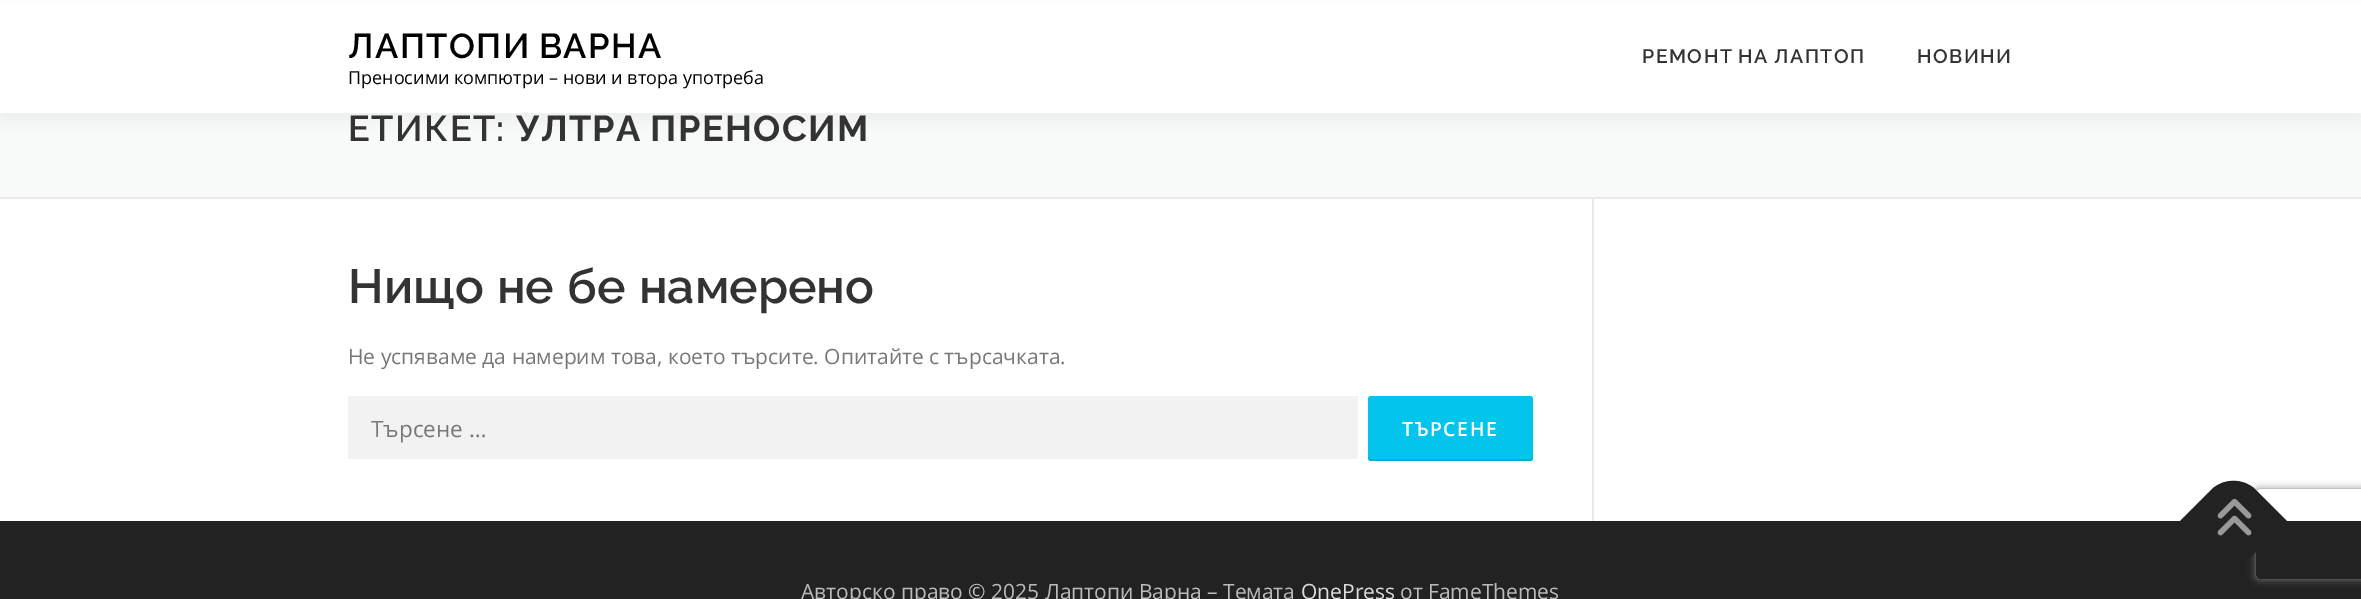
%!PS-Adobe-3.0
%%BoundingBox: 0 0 2361 599
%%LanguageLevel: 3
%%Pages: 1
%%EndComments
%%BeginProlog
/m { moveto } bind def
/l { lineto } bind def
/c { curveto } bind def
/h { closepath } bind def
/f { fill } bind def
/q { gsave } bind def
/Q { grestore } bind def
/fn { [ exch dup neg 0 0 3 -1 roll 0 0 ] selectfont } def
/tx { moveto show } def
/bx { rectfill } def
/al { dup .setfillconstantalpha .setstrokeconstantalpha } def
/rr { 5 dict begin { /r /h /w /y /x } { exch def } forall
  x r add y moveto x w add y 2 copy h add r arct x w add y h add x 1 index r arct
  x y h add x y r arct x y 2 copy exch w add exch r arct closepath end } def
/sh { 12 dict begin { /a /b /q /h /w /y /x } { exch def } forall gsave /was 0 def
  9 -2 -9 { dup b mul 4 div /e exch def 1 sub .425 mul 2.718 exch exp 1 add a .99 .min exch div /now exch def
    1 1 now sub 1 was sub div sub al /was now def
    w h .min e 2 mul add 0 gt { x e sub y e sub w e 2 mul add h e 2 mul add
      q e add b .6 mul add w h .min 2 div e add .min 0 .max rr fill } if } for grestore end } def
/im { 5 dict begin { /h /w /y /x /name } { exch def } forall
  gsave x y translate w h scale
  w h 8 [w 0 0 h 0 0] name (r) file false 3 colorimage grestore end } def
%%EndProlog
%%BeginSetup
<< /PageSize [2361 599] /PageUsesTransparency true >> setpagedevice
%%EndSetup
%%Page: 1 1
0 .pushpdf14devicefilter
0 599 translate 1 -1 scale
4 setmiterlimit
1 setgray
0 0 2361 599 bx
0.973 0.976 0.976 setrgbcolor
0 113 2361 84 bx
0.196 setgray
0 8 2361 112 0 7.5 0.06 sh
1 setgray
0 2 2361 111 bx
/Raleway-SemiBold 34.5 fn
0 setgray
348 58 m -2 0 32 1.5 0 (ЛАПТОПИ ВАРНА) awidthshow
/OpenSans-Regular 18 fn
(Преносими компютри – нови и втора употреба) 348 84 tx
/Raleway-SemiBold 19.5 fn
0.2 setgray
1642 63 m -1 0 32 1.5 0 (РЕМОНТ НА ЛАПТОП) awidthshow
1917 63 m 1.5 0 (НОВИНИ) ashow
0.914 setgray
0 197 2361 2 bx
/Raleway-SemiBold 36 fn
0.2 setgray
348 141 m 1.5 0 (ЕТИКЕТ:) ashow
/Raleway-Bold 36 fn
516 141 m -2 0 32 1.5 0 (УЛТРА ПРЕНОСИМ) awidthshow
0.914 setgray
1592 198 2 323 bx
/Raleway-SemiBold 48 fn
0.2 setgray
348 303 m 1.5 0 32 (Нищо не бе намерено) widthshow
/OpenSans-Regular 21 fn
0.467 setgray
(Не успяваме да намерим това, което търсите. Опитайте с търсачката.) 348 364 tx
0.949 setgray
348 396 1010 63 bx
/OpenSans-Regular 22.5 fn
0.467 setgray
(Търсене …) 371 437 tx
0.012 0.769 0.922 setrgbcolor
1368 396 165 65 3 rr f
0.1 al
0 setgray
1368 456 m 1368 458 l 1368 460 1369 461 1371 461 c 1530 461 l 1532 461 1533 460 1533 458 c 1533 456 l 1533 458 1532 459 1530 459 c 1371 459 l 1369 459 1368 458 1368 456 c h f
/OpenSans-SemiBold 19.5 fn
1 al
1 setgray
1402 436 m 1.5 0 (ТЪРСЕНЕ) ashow
0.133 setgray
0 521 2361 78 bx
q
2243 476 m 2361 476 l 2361 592 l 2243 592 l h 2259 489 m 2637 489 l 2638.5 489 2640 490.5 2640 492 c 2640 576 l 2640 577.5 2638.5 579 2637 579 c 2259 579 l 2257.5 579 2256 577.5 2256 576 c 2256 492 l 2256 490.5 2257.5 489 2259 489 c h eoclip newpath
0.502 setgray
2256 489 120 90 3 4 1 sh
Q
2180 521 m 2212 489 l 2224 478 2243 478 2255 489 c 2287 521 l 2234 574 l h f
(image0.raw) 2217 498 35 38 im
/OpenSans-Regular 21 fn
0.733 setgray
(Авторско право © 2025 Лаптопи Варна – Темата) 801 599 tx
0.867 setgray
(OnePress) 1301 599 tx
0.733 setgray
(от FameThemes) 1400 599 tx
.poppdf14devicefilter showpage
%%EOF
